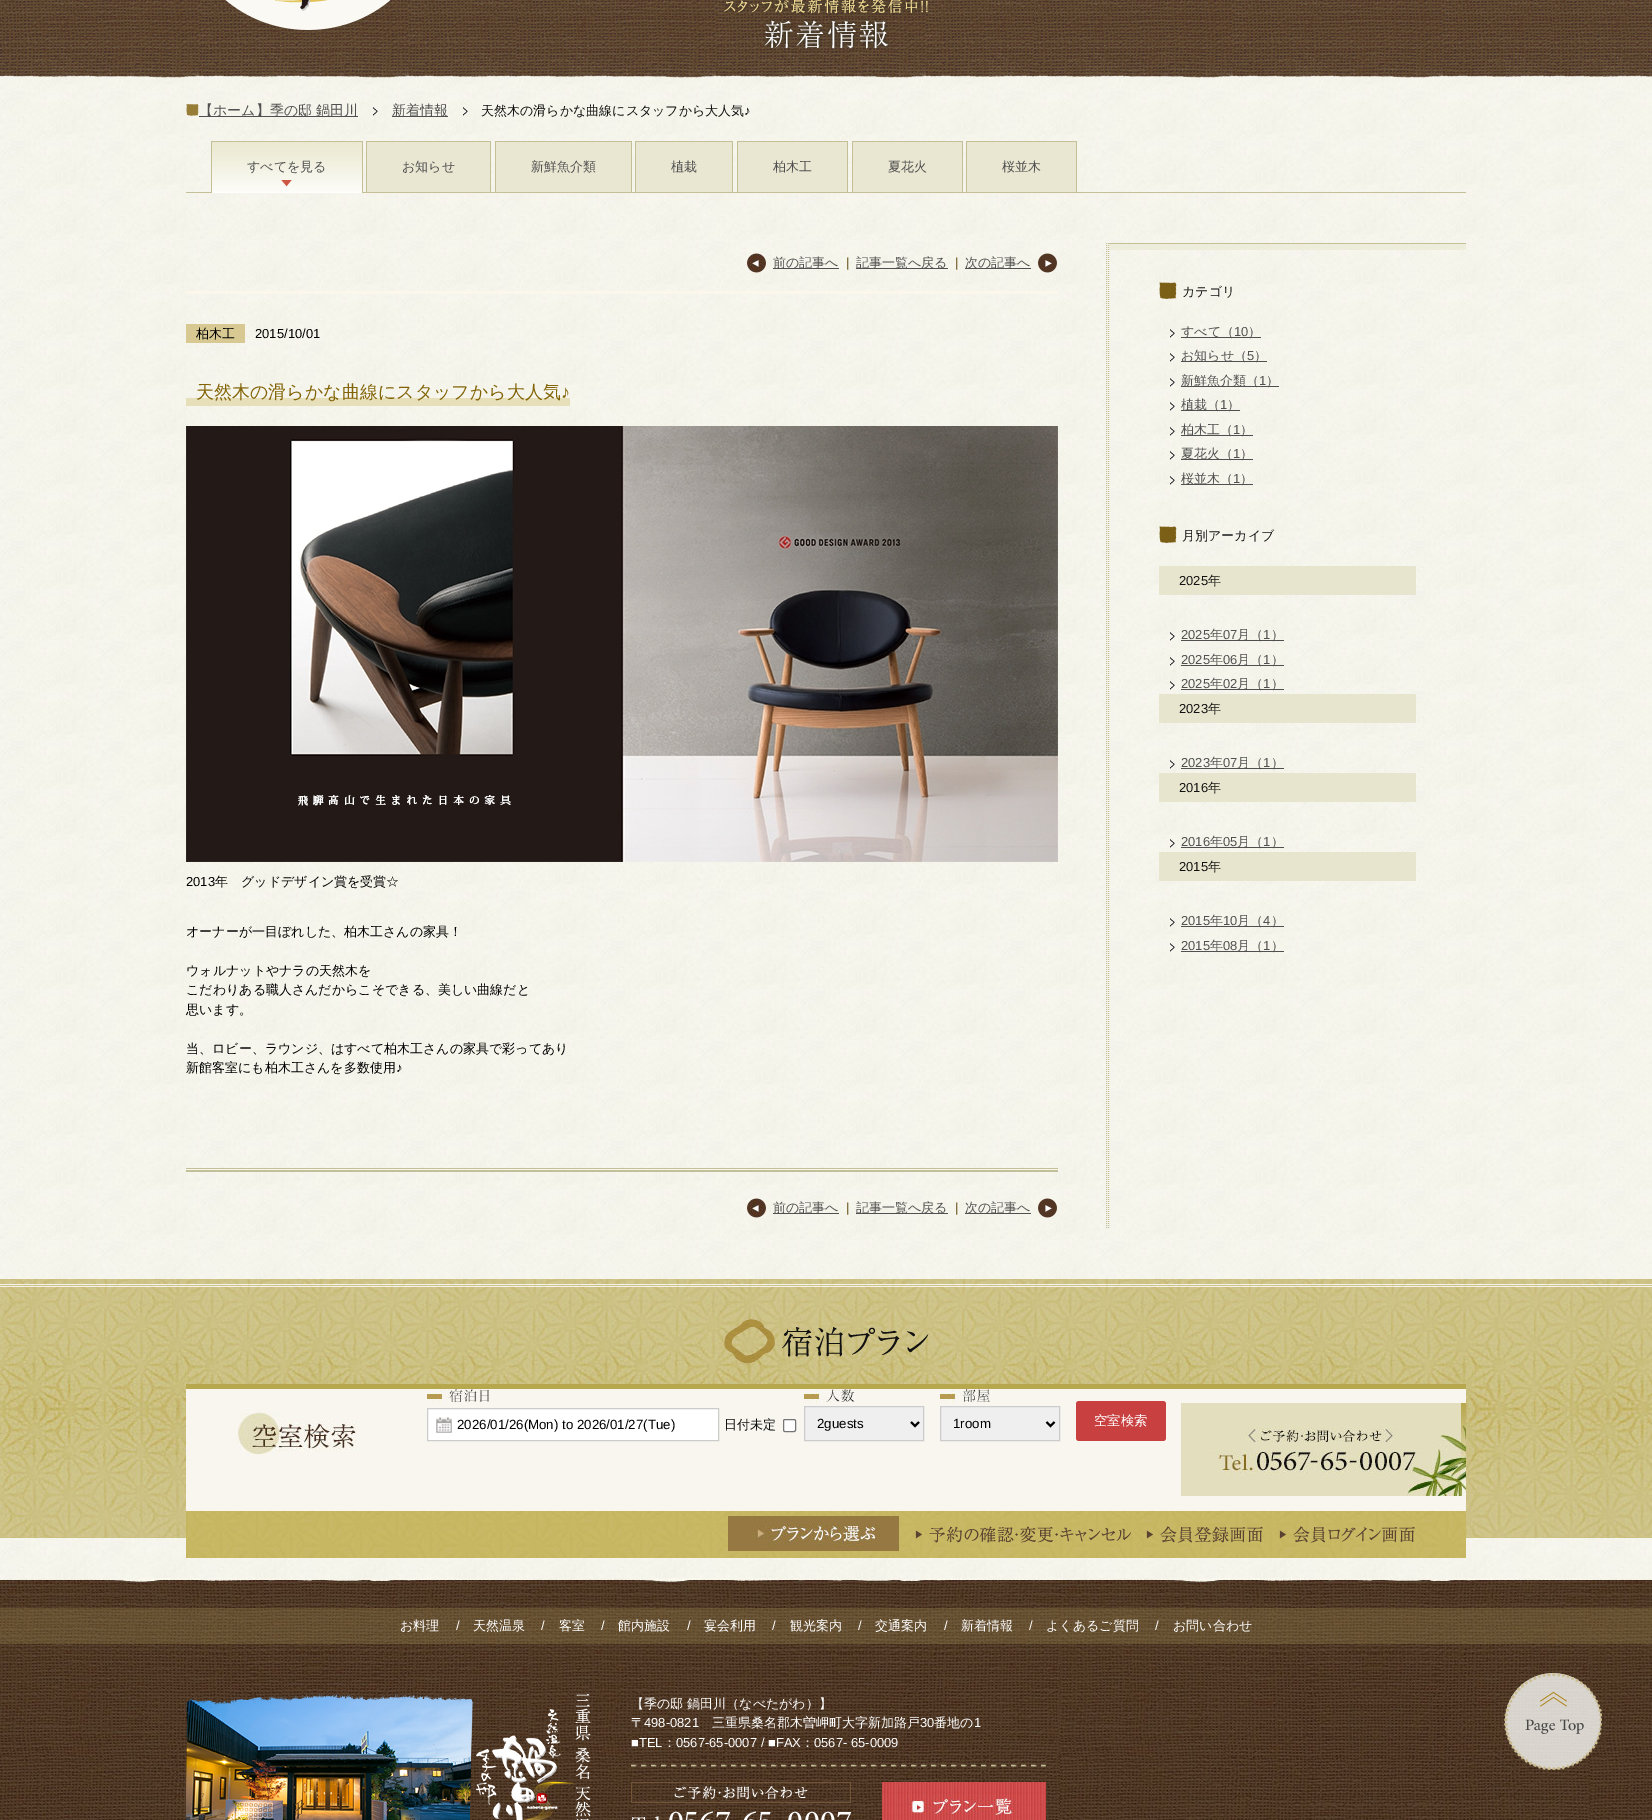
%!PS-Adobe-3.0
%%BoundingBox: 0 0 1652 1820
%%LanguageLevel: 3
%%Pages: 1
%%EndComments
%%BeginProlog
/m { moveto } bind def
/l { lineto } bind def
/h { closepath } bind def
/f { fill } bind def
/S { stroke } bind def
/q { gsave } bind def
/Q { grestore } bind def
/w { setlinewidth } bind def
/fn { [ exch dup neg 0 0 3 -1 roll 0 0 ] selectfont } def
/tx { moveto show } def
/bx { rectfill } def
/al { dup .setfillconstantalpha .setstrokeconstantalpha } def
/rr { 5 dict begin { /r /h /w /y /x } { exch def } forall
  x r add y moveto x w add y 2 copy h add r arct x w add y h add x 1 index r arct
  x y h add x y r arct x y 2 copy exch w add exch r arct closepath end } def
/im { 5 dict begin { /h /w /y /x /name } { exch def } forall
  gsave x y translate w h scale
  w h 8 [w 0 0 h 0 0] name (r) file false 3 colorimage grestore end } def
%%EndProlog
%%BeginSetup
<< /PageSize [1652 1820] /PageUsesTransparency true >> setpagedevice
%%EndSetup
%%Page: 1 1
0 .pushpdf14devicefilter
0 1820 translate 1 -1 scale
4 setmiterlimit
1 setgray
0 0 1652 1820 bx
(image0.raw) 0 0 1652 1578 im
(image2.raw) 0 0 1652 78 im
(image1.raw) 225 0 166 30 im
(image3.raw) 723 0 206 49 im
(image4.raw) 186 104 13 12 im
0.314 setgray
199 116 159 1 bx
/WenQuanYiZenHei-Medium 14 fn
(【ホーム】季の邸 鍋田川) 199 115 tx
(image5.raw) 373 107 5 9 im
392 116 56 1 bx
(新着情報) 392 115 tx
(image6.raw) 463 107 5 9 im
/WenQuanYiZenHei-Medium 13 fn
0.067 setgray
(天然木の滑らかな曲線にスタッフから大人気) 481 115 tx
/LiberationSans-Regular 13 fn
(♪) 744 115 tx
0.769 0.749 0.588 setrgbcolor
186 192 1280 1 bx
(image7.raw) 212 142 150 50 im
211 141 152 1 bx
362 141 1 51 bx
211 141 1 51 bx
/WenQuanYiZenHei-Medium 13 fn
0.314 setgray
(すべてを見る) 247 171 tx
(image8.raw) 281 180 11 7 im
0.996 0.996 0.992 setrgbcolor
212 192 150 1 bx
0.914 0.902 0.82 setrgbcolor
367 142 123 50 bx
0.769 0.749 0.588 setrgbcolor
366 141 125 1 bx
490 141 1 51 bx
366 141 1 51 bx
0.314 setgray
(お知らせ) 402 171 tx
0.914 0.902 0.82 setrgbcolor
496 142 135 50 bx
0.769 0.749 0.588 setrgbcolor
495 141 137 1 bx
631 141 1 51 bx
495 141 1 51 bx
0.314 setgray
(新鮮魚介類) 531 171 tx
0.914 0.902 0.82 setrgbcolor
636 142 96 50 bx
0.769 0.749 0.588 setrgbcolor
635 141 98 1 bx
732 141 1 51 bx
635 141 1 51 bx
0.314 setgray
(植栽) 671 171 tx
0.914 0.902 0.82 setrgbcolor
738 142 109 50 bx
0.769 0.749 0.588 setrgbcolor
737 141 111 1 bx
847 141 1 51 bx
737 141 1 51 bx
0.314 setgray
(柏木工) 773 171 tx
0.914 0.902 0.82 setrgbcolor
853 142 109 50 bx
0.769 0.749 0.588 setrgbcolor
852 141 111 1 bx
962 141 1 51 bx
852 141 1 51 bx
0.314 setgray
(夏花火) 888 171 tx
0.914 0.902 0.82 setrgbcolor
967 142 109 50 bx
0.769 0.749 0.588 setrgbcolor
966 141 111 1 bx
1076 141 1 51 bx
966 141 1 51 bx
0.314 setgray
(桜並木) 1002 171 tx
0.769 0.749 0.588 setrgbcolor
[1 1] 0 setdash
1106.5 243 m 1106.5 1229 l S
0.992 0.969 0.922 setrgbcolor
186 291 872 3 bx
(image9.raw) 747 253 19 20 im
0.314 setgray
773 268 66 1 bx
(前の記事へ) 773 267 tx
/LiberationSans-Regular 13 fn
0.345 0.259 0.02 setrgbcolor
(|) 846 267 tx
0.314 setgray
856 268 92 1 bx
/WenQuanYiZenHei-Medium 13 fn
(記事一覧へ戻る) 856 267 tx
/LiberationSans-Regular 13 fn
0.345 0.259 0.02 setrgbcolor
(|) 955 267 tx
0.314 setgray
965 268 66 1 bx
/WenQuanYiZenHei-Medium 13 fn
(次の記事へ) 965 267 tx
(image10.raw) 1038 253 19 20 im
0.769 0.749 0.588 setrgbcolor
1108.5 243 m 1108.5 1229 l S
0.847 0.788 0.576 setrgbcolor
186 324 59 19 bx
0 setgray
(柏木工) 196 338 tx
/LiberationSans-Regular 13 fn
(2015/10/01) 255 338 tx
0.906 0.875 0.729 setrgbcolor
186 398 384 8 bx
/WenQuanYiZenHei-Medium 18 fn
0.51 0.388 0.02 setrgbcolor
(天然木の滑らかな曲線にスタッフから大人気) 196 398 tx
/LiberationSans-Regular 18 fn
(♪) 561 398 tx
(image11.raw) 186 426 872 436 im
/LiberationSans-Regular 13 fn
0 setgray
(2013) 186 886 tx
/WenQuanYiZenHei-Medium 13 fn
(年　グッドデザイン賞を受賞☆) 215 886 tx
(オーナーが一目ぼれした、柏木工さんの家具！) 186 936 tx
(ウォルナットやナラの天然木を) 186 975 tx
(こだわりある職人さんだからこそできる、美しい曲線だと) 186 994 tx
(思います。) 186 1014 tx
(当、ロビー、ラウンジ、はすべて柏木工さんの家具で彩ってあり) 186 1053 tx
(新館客室にも柏木工さんを多数使用) 186 1072 tx
/LiberationSans-Regular 13 fn
(♪) 396 1072 tx
(image12.raw) 186 1168 872 4 im
(image9.raw) 747 1198 19 20 im
0.314 setgray
773 1213 66 1 bx
/WenQuanYiZenHei-Medium 13 fn
(前の記事へ) 773 1212 tx
/LiberationSans-Regular 13 fn
0.345 0.259 0.02 setrgbcolor
(|) 846 1212 tx
0.314 setgray
856 1213 92 1 bx
/WenQuanYiZenHei-Medium 13 fn
(記事一覧へ戻る) 856 1212 tx
/LiberationSans-Regular 13 fn
0.345 0.259 0.02 setrgbcolor
(|) 955 1212 tx
0.314 setgray
965 1213 66 1 bx
/WenQuanYiZenHei-Medium 13 fn
(次の記事へ) 965 1212 tx
(image13.raw) 1038 1198 19 20 im
0.933 0.925 0.859 setrgbcolor
1109 244 357 6 bx
0.769 0.749 0.588 setrgbcolor
1109 243 357 1 bx
(image14.raw) 1159 282 18 17 im
0.067 setgray
(カテゴリ) 1182 296 tx
(image15.raw) 1170 329 5 9 im
0.314 setgray
1181 337 80 1 bx
(すべて（) 1181 336 tx
/LiberationSans-Regular 13 fn
(10) 1234 336 tx
/WenQuanYiZenHei-Medium 13 fn
(）) 1248 336 tx
(image16.raw) 1170 353 5 9 im
1181 361 86 1 bx
(お知らせ（) 1181 360 tx
/LiberationSans-Regular 13 fn
(5) 1247 360 tx
/WenQuanYiZenHei-Medium 13 fn
(）) 1254 360 tx
(image17.raw) 1170 378 5 9 im
1181 386 98 1 bx
(新鮮魚介類（) 1181 385 tx
/LiberationSans-Regular 13 fn
(1) 1259 385 tx
/WenQuanYiZenHei-Medium 13 fn
(）) 1266 385 tx
(image18.raw) 1170 402 5 9 im
1181 410 59 1 bx
(植栽（) 1181 409 tx
/LiberationSans-Regular 13 fn
(1) 1220 409 tx
/WenQuanYiZenHei-Medium 13 fn
(）) 1227 409 tx
(image19.raw) 1170 427 5 9 im
1181 435 72 1 bx
(柏木工（) 1181 434 tx
/LiberationSans-Regular 13 fn
(1) 1233 434 tx
/WenQuanYiZenHei-Medium 13 fn
(）) 1240 434 tx
(image20.raw) 1170 451 5 9 im
1181 459 72 1 bx
(夏花火（) 1181 458 tx
/LiberationSans-Regular 13 fn
(1) 1233 458 tx
/WenQuanYiZenHei-Medium 13 fn
(）) 1240 458 tx
(image21.raw) 1170 476 5 9 im
1181 484 72 1 bx
(桜並木（) 1181 483 tx
/LiberationSans-Regular 13 fn
(1) 1233 483 tx
/WenQuanYiZenHei-Medium 13 fn
(）) 1240 483 tx
(image22.raw) 1159 526 18 17 im
0.067 setgray
(月別アーカイブ) 1182 540 tx
0.91 0.898 0.808 setrgbcolor
1159 566 257 29 bx
/LiberationSans-Regular 13 fn
0.067 setgray
(2025) 1179 585 tx
/WenQuanYiZenHei-Medium 13 fn
(年) 1208 585 tx
(image23.raw) 1170 632 5 9 im
/LiberationSans-Regular 13 fn
0.314 setgray
(2025) 1181 639 tx
1181 640 103 1 bx
/WenQuanYiZenHei-Medium 13 fn
(年) 1210 639 tx
/LiberationSans-Regular 13 fn
(07) 1223 639 tx
/WenQuanYiZenHei-Medium 13 fn
(月（) 1237 639 tx
/LiberationSans-Regular 13 fn
(1) 1263 639 tx
/WenQuanYiZenHei-Medium 13 fn
(）) 1271 639 tx
(image24.raw) 1170 657 5 9 im
/LiberationSans-Regular 13 fn
(2025) 1181 664 tx
1181 665 103 1 bx
/WenQuanYiZenHei-Medium 13 fn
(年) 1210 664 tx
/LiberationSans-Regular 13 fn
(06) 1223 664 tx
/WenQuanYiZenHei-Medium 13 fn
(月（) 1237 664 tx
/LiberationSans-Regular 13 fn
(1) 1263 664 tx
/WenQuanYiZenHei-Medium 13 fn
(）) 1271 664 tx
(image25.raw) 1170 681 5 9 im
/LiberationSans-Regular 13 fn
(2025) 1181 688 tx
1181 689 103 1 bx
/WenQuanYiZenHei-Medium 13 fn
(年) 1210 688 tx
/LiberationSans-Regular 13 fn
(02) 1223 688 tx
/WenQuanYiZenHei-Medium 13 fn
(月（) 1237 688 tx
/LiberationSans-Regular 13 fn
(1) 1263 688 tx
/WenQuanYiZenHei-Medium 13 fn
(）) 1271 688 tx
0.91 0.898 0.808 setrgbcolor
1159 694 257 29 bx
/LiberationSans-Regular 13 fn
0.067 setgray
(2023) 1179 713 tx
/WenQuanYiZenHei-Medium 13 fn
(年) 1208 713 tx
(image26.raw) 1170 760 5 9 im
/LiberationSans-Regular 13 fn
0.314 setgray
(2023) 1181 767 tx
1181 768 103 1 bx
/WenQuanYiZenHei-Medium 13 fn
(年) 1210 767 tx
/LiberationSans-Regular 13 fn
(07) 1223 767 tx
/WenQuanYiZenHei-Medium 13 fn
(月（) 1237 767 tx
/LiberationSans-Regular 13 fn
(1) 1263 767 tx
/WenQuanYiZenHei-Medium 13 fn
(）) 1271 767 tx
0.91 0.898 0.808 setrgbcolor
1159 773 257 29 bx
/LiberationSans-Regular 13 fn
0.067 setgray
(2016) 1179 792 tx
/WenQuanYiZenHei-Medium 13 fn
(年) 1208 792 tx
(image27.raw) 1170 839 5 9 im
/LiberationSans-Regular 13 fn
0.314 setgray
(2016) 1181 846 tx
1181 847 103 1 bx
/WenQuanYiZenHei-Medium 13 fn
(年) 1210 846 tx
/LiberationSans-Regular 13 fn
(05) 1223 846 tx
/WenQuanYiZenHei-Medium 13 fn
(月（) 1237 846 tx
/LiberationSans-Regular 13 fn
(1) 1263 846 tx
/WenQuanYiZenHei-Medium 13 fn
(）) 1271 846 tx
0.91 0.898 0.808 setrgbcolor
1159 852 257 29 bx
/LiberationSans-Regular 13 fn
0.067 setgray
(2015) 1179 871 tx
/WenQuanYiZenHei-Medium 13 fn
(年) 1208 871 tx
(image28.raw) 1170 918 5 9 im
/LiberationSans-Regular 13 fn
0.314 setgray
(2015) 1181 925 tx
1181 926 103 1 bx
/WenQuanYiZenHei-Medium 13 fn
(年) 1210 925 tx
/LiberationSans-Regular 13 fn
(10) 1223 925 tx
/WenQuanYiZenHei-Medium 13 fn
(月（) 1237 925 tx
/LiberationSans-Regular 13 fn
(4) 1263 925 tx
/WenQuanYiZenHei-Medium 13 fn
(）) 1271 925 tx
(image29.raw) 1170 943 5 9 im
/LiberationSans-Regular 13 fn
(2015) 1181 950 tx
1181 951 103 1 bx
/WenQuanYiZenHei-Medium 13 fn
(年) 1210 950 tx
/LiberationSans-Regular 13 fn
(08) 1223 950 tx
/WenQuanYiZenHei-Medium 13 fn
(月（) 1237 950 tx
/LiberationSans-Regular 13 fn
(1) 1263 950 tx
/WenQuanYiZenHei-Medium 13 fn
(）) 1271 950 tx
(image30.raw) 0 1279 1652 259 im
(image31.raw) 724 1319 205 45 im
0.973 0.965 0.933 setrgbcolor
186 1389 1280 122 bx
0.718 0.655 0.302 setrgbcolor
186 1384 1280 5 bx
(image32.raw) 238 1412 118 43 im
(image33.raw) 427 1389 62 13 im
1 setgray
427.5 1408.5 m 718.5 1408.5 l 718.5 1440.5 l 427.5 1440.5 l h q f Q
0.8 setgray
[] 0 setdash
S
(image34.raw) 436 1417 16 16 im
/LiberationSans-Regular 13.3 fn
0 setgray
(2026/01/26\(Mon\) to 2026/01/27\(Tue\)) 457 1429 tx
/WenQuanYiZenHei-Medium 13 fn
0.067 setgray
(日付未定) 724 1429 tx
1 setgray
783.5 1419.5 12 12 1.5 rr q f Q
0.463 setgray
S
(image35.raw) 804 1389 51 13 im
0.937 setgray
804.5 1406.5 m 923.5 1406.5 l 923.5 1440.5 l 804.5 1440.5 l h q f Q
0.8 setgray
S
0 setgray
2 w
911 1422 m 915 1426 l 919 1422 l S
/LiberationSans-Regular 13.3 fn
(2guests) 817 1428 tx
(image36.raw) 940 1389 50 13 im
0.937 setgray
940.5 1406.5 m 1059.5 1406.5 l 1059.5 1440.5 l 940.5 1440.5 l h q f Q
0.8 setgray
1 w
S
0 setgray
2 w
1046.5 1422 m 1050.5 1426 l 1054.5 1422 l S
(1room) 953 1428 tx
0.788 0.251 0.251 setrgbcolor
1076 1401 90 40 3 rr f
/WenQuanYiZenHei-Medium 13.3 fn
1 setgray
(空室検索) 1094 1425 tx
(image37.raw) 1181 1403 285 93 im
(image38.raw) 186 1511 1280 47 im
(image39.raw) 728 1516 171 35 im
(image40.raw) 915 1526 216 17 im
(image41.raw) 1146 1526 117 17 im
(image42.raw) 1279 1526 136 17 im
(image43.raw) 0 1578 1652 242 im
0.3 al
0.624 0.545 0.325 setrgbcolor
0 1608 1652 36 bx
/WenQuanYiZenHei-Medium 13 fn
1 al
1 setgray
(お料理) 400 1630 tx
/LiberationSans-Regular 13 fn
(/) 456 1630 tx
/WenQuanYiZenHei-Medium 13 fn
(天然温泉) 473 1630 tx
/LiberationSans-Regular 13 fn
(/) 541 1630 tx
/WenQuanYiZenHei-Medium 13 fn
(客室) 559 1630 tx
/LiberationSans-Regular 13 fn
(/) 601 1630 tx
/WenQuanYiZenHei-Medium 13 fn
(館内施設) 618 1630 tx
/LiberationSans-Regular 13 fn
(/) 687 1630 tx
/WenQuanYiZenHei-Medium 13 fn
(宴会利用) 704 1630 tx
/LiberationSans-Regular 13 fn
(/) 772 1630 tx
/WenQuanYiZenHei-Medium 13 fn
(観光案内) 790 1630 tx
/LiberationSans-Regular 13 fn
(/) 858 1630 tx
/WenQuanYiZenHei-Medium 13 fn
(交通案内) 875 1630 tx
/LiberationSans-Regular 13 fn
(/) 944 1630 tx
/WenQuanYiZenHei-Medium 13 fn
(新着情報) 961 1630 tx
/LiberationSans-Regular 13 fn
(/) 1029 1630 tx
/WenQuanYiZenHei-Medium 13 fn
(よくあるご質問) 1046 1630 tx
/LiberationSans-Regular 13 fn
(/) 1155 1630 tx
/WenQuanYiZenHei-Medium 13 fn
(お問い合わせ) 1173 1630 tx
(image44.raw) 186 1694 287 126 im
(image45.raw) 476 1694 115 126 im
(image46.raw) 631 1764 415 3 im
(【季の邸 鍋田川（なべたがわ）】) 631 1708 tx
(〒) 631 1727 tx
/LiberationSans-Regular 13 fn
(498-0821) 644 1727 tx
/WenQuanYiZenHei-Medium 13 fn
(三重県桑名郡木曽岬町大字新加路戸) 712 1727 tx
/LiberationSans-Regular 13 fn
(30) 920 1727 tx
/WenQuanYiZenHei-Medium 13 fn
(番地の) 934 1727 tx
/LiberationSans-Regular 13 fn
(1) 974 1727 tx
(■TEL) 631 1747 tx
/WenQuanYiZenHei-Medium 13 fn
(：) 663 1747 tx
/LiberationSans-Regular 13 fn
(0567-65-0007 / ■FAX) 676 1747 tx
/WenQuanYiZenHei-Medium 13 fn
(：) 801 1747 tx
/LiberationSans-Regular 13 fn
(0567- 65-0009) 814 1747 tx
(image47.raw) 631 1782 220 38 im
(image48.raw) 882 1782 164 38 im
(image49.raw) 1504 1673 98 97 im
.poppdf14devicefilter showpage
%%EOF
